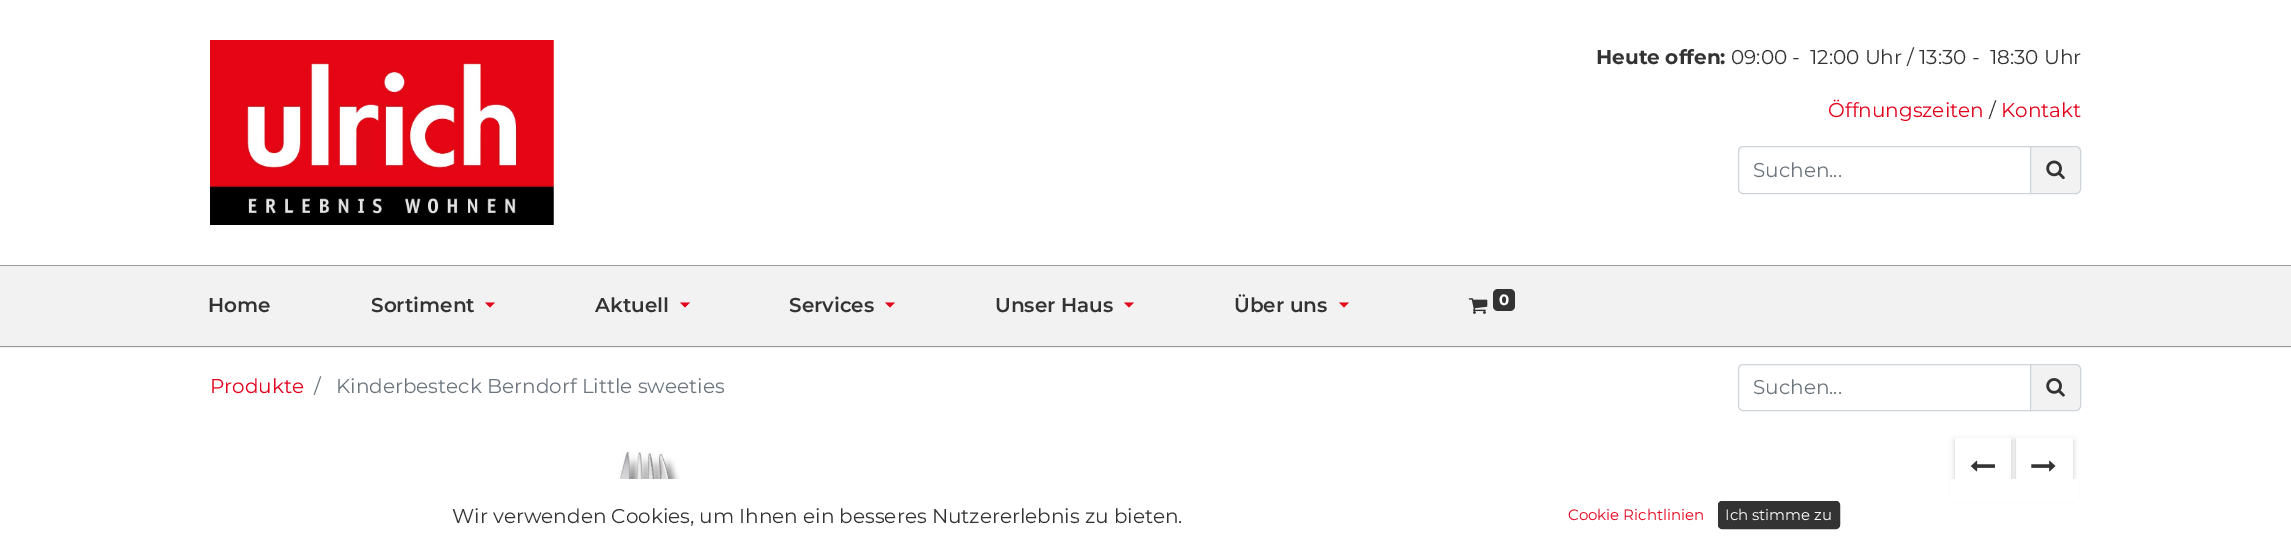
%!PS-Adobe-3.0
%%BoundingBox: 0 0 2291 554
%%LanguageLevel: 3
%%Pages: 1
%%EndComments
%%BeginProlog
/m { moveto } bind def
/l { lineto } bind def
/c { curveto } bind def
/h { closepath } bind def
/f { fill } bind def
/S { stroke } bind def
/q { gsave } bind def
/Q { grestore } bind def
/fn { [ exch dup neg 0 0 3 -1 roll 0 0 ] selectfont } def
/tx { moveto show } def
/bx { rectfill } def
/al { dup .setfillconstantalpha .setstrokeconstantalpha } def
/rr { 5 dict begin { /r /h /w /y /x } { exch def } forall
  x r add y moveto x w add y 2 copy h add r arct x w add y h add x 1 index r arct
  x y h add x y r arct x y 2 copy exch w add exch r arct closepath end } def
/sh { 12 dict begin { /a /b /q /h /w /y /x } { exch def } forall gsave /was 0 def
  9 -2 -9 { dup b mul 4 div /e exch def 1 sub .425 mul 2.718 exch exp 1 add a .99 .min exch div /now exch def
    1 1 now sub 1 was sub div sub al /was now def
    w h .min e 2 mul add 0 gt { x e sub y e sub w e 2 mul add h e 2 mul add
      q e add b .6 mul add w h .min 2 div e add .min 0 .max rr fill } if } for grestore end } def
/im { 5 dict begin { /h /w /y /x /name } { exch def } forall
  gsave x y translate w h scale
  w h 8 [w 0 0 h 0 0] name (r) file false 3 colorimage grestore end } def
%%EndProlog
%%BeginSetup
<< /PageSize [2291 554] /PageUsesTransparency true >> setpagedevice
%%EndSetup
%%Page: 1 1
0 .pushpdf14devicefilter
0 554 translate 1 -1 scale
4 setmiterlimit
1 setgray
0 0 2291 554 bx
(image0.raw) 210 40 344 185 im
/Montserrat-Bold 20 fn
0.2 setgray
(Heute offen:) 1596 64 tx
/Montserrat-Regular 20 fn
(09:00 -) 1731 64 tx
(12:00 Uhr / 13:30 -) 1810 64 tx
(18:30 Uhr) 1990 64 tx
0.89 0 0.106 setrgbcolor
(Öffnungszeiten) 1828 117 tx
0.2 setgray
(/) 1989 117 tx
0.89 0 0.106 setrgbcolor
(Kontakt) 2001 117 tx
0.808 0.831 0.855 setrgbcolor
1743 146.5 m 2030.5 146.5 l 2030.5 193.5 l 1743 193.5 l 1740.5 193.5 1738.5 191.5 1738.5 189 c 1738.5 151 l 1738.5 148.5 1740.5 146.5 1743 146.5 c h S
0.424 0.459 0.49 setrgbcolor
(Suchen...) 1753 177 tx
0.949 setgray
2030.5 146.5 m 2076 146.5 l 2078.5 146.5 2080.5 148.5 2080.5 151 c 2080.5 189 l 2080.5 191.5 2078.5 193.5 2076 193.5 c 2030.5 193.5 l h q f Q
0.808 0.831 0.855 setrgbcolor
S
(image1.raw) 2046 160 19 20 im
0.949 setgray
0 266 2291 82 bx
0.6 setgray
0 265 2291 1 bx
0 346 2291 1 bx
/Montserrat-SemiBold 20 fn
0.2 setgray
(Home) 208 312 tx
(Sortiment) 371 312 tx
0.89 0 0.106 setrgbcolor
485 302.5 m 495 302.5 l 490 307.5 l h f
0.2 setgray
(Aktuell) 595 312 tx
0.89 0 0.106 setrgbcolor
680 302.5 m 690 302.5 l 685 307.5 l h f
0.2 setgray
(Services) 789 312 tx
0.89 0 0.106 setrgbcolor
885 302.5 m 895 302.5 l 890 307.5 l h f
0.2 setgray
(Unser Haus) 995 312 tx
0.89 0 0.106 setrgbcolor
1124 302.5 m 1134 302.5 l 1129 307.5 l h f
0.2 setgray
(Über uns) 1234 312 tx
0.89 0 0.106 setrgbcolor
1339 302.5 m 1349 302.5 l 1344 307.5 l h f
(image2.raw) 1468 298 20 16 im
0.2 setgray
1493 289 22 22 5 rr f
/Montserrat-Bold 15 fn
1 setgray
(0) 1499 305 tx
/Montserrat-Regular 20 fn
0.89 0 0.106 setrgbcolor
(Produkte) 210 393 tx
0.424 0.459 0.49 setrgbcolor
(/) 314 393 tx
(Kinderbesteck Berndorf Little sweeties) 336 393 tx
0.808 0.831 0.855 setrgbcolor
1743 364.5 m 2030.5 364.5 l 2030.5 410.5 l 1743 410.5 l 1740.5 410.5 1738.5 408.5 1738.5 406 c 1738.5 369 l 1738.5 366.5 1740.5 364.5 1743 364.5 c h S
0.424 0.459 0.49 setrgbcolor
(Suchen...) 1753 394 tx
0.949 setgray
2030.5 364.5 m 2076 364.5 l 2078.5 364.5 2080.5 366.5 2080.5 369 c 2080.5 406 l 2080.5 408.5 2078.5 410.5 2076 410.5 c 2030.5 410.5 l h q f Q
0.808 0.831 0.855 setrgbcolor
S
(image3.raw) 2046 378 19 19 im
(image4.raw) 518 451 166 28 im
q
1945 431 m 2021 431 l 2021 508 l 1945 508 l h 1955 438 m 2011 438 l 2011 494 l 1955 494 l h eoclip newpath
0 setgray
1955 441 56 57 0 3 0.1 sh
Q
q
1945 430 m 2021 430 l 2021 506 l 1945 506 l h 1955 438 m 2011 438 l 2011 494 l 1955 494 l h eoclip newpath
0 setgray
1955 440 56 56 0 3 0.1 sh
Q
(image5.raw) 1970 460 25 12 im
q
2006 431 m 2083 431 l 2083 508 l 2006 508 l h 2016 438 m 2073 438 l 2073 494 l 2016 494 l h eoclip newpath
0 setgray
2016 441 57 57 0 3 0.1 sh
Q
q
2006 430 m 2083 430 l 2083 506 l 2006 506 l h 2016 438 m 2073 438 l 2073 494 l 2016 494 l h eoclip newpath
0 setgray
2016 440 57 56 0 3 0.1 sh
Q
(image6.raw) 2031 460 25 12 im
1 setgray
1950 479 128 23 bx
0.2 setgray
(Wir verwenden Cookies, um Ihnen ein besseres Nutzererlebnis zu bieten.) 452 523 tx
/Montserrat-Regular 15 fn
0.89 0 0.106 setrgbcolor
(Cookie Richtlinien) 1568 520 tx
0.2 setgray
1718.5 501.5 121 27 3.5 rr q f Q
S
1 setgray
(Ich stimme zu) 1725 520 tx
.poppdf14devicefilter showpage
%%EOF
